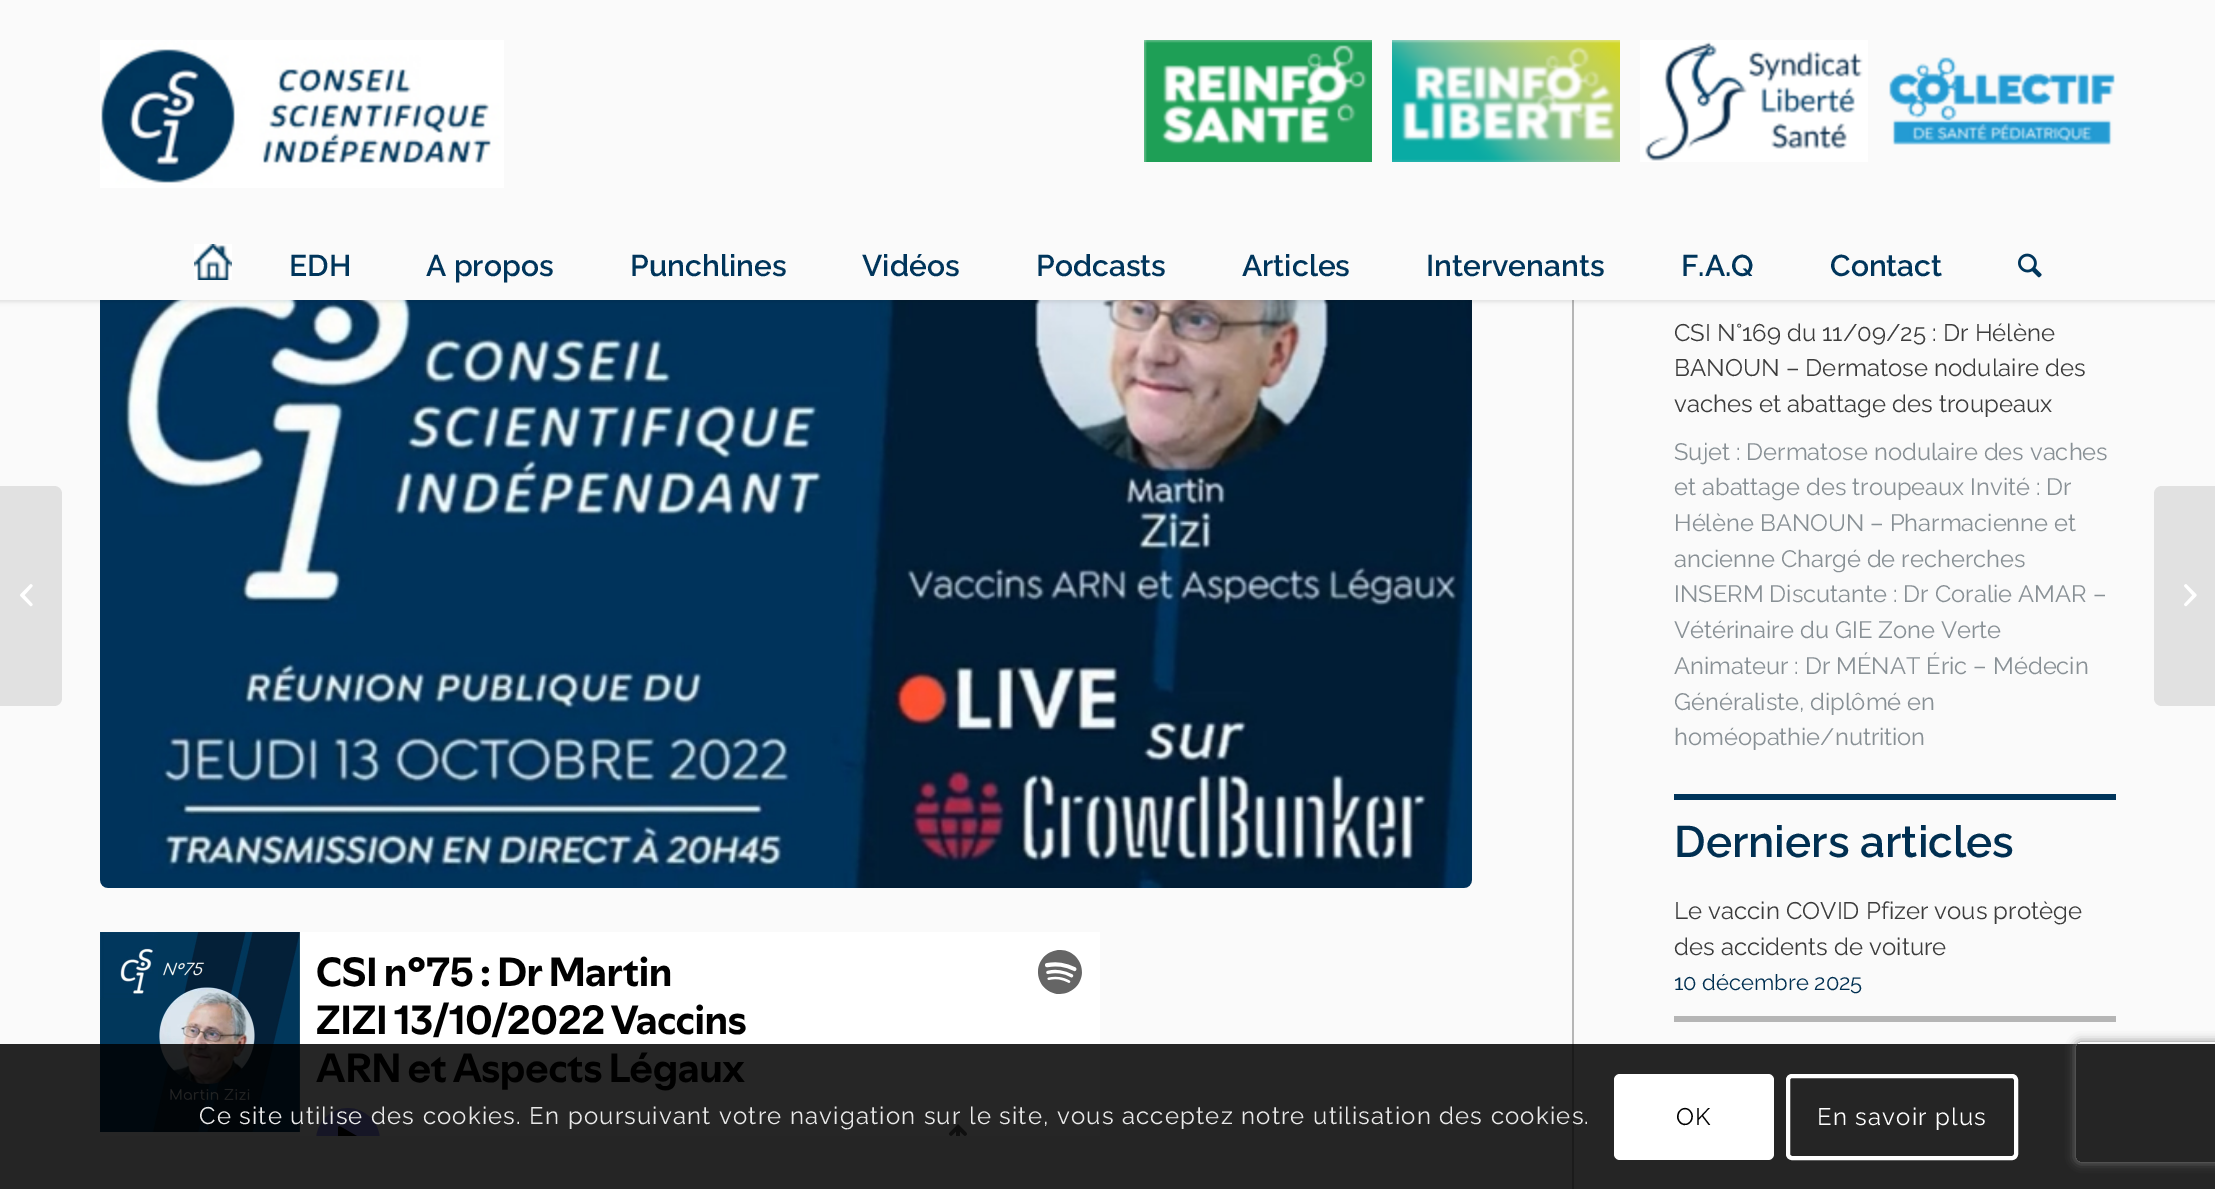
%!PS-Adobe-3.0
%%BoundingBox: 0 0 2215 1189
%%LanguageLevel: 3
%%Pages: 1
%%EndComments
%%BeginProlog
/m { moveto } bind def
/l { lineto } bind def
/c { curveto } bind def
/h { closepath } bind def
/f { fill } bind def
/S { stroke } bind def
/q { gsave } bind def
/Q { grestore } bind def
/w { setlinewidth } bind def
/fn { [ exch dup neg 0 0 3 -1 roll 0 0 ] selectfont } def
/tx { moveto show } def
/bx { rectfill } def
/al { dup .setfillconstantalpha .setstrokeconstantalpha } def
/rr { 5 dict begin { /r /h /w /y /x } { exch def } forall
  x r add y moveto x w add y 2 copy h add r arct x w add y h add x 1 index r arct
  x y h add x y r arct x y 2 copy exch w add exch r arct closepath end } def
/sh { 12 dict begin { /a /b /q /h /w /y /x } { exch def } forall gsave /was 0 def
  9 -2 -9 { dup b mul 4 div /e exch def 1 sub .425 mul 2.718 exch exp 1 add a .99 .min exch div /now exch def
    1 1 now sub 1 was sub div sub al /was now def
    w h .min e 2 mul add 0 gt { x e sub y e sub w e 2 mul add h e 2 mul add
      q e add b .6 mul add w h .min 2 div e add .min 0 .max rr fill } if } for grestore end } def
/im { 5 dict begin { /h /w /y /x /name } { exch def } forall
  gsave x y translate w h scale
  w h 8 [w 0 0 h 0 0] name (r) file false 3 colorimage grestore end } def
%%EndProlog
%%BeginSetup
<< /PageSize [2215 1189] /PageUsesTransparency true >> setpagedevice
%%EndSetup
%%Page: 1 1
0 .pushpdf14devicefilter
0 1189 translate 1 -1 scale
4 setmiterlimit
0.98 setgray
0 0 2215 1189 bx
0.71 setgray
1572 300 2 889 bx
(image8.raw) 100 300 1372 588 im
0 setgray
-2 -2 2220 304 0 2 0.1 sh
0.98 setgray
0 0 2215 300 bx
(image0.raw) 100 40 404 148 im
(image1.raw) 1144 40 228 122 im
(image2.raw) 1392 40 228 122 im
(image3.raw) 1640 40 228 122 im
(image4.raw) 1889 57 226 88 im
(image5.raw) 194 244 38 36 im
/Raleway-SemiBold 30 fn
0 0.208 0.357 setrgbcolor
(EDH) 289 276 tx
(A propos) 426 276 tx
(Punchlines) 630 276 tx
(Vidéos) 862 276 tx
(Podcasts) 1036 276 tx
(Articles) 1242 276 tx
(Intervenants) 1426 276 tx
(F.A.Q) 1681 276 tx
(Contact) 1830 276 tx
(image6.raw) 2018 253 24 25 im
0.882 setgray
0 486 m 54 486 l 58.5 486 62 489.5 62 494 c 62 698 l 62 702.5 58.5 706 54 706 c 0 706 l h f
(image7.raw) 20 584 13 23 im
(image9.raw) 100 932 1000 204 im
/Raleway-Regular 24 fn
0.235 setgray
(CSI N°169 du 11/09/25 : Dr Hélène) 1674 341 tx
(BANOUN – Dermatose nodulaire des) 1674 376 tx
(vaches et abattage des troupeaux) 1674 412 tx
/Raleway-Regular 23.75 fn
0.533 0.565 0.584 setrgbcolor
(Sujet : Dermatose nodulaire des vaches) 1674 460 tx
(et abattage des troupeaux Invité : Dr) 1674 495 tx
(Hélène BANOUN – Pharmacienne et) 1674 531 tx
(ancienne Chargé de recherches) 1674 567 tx
(INSERM Discutante : Dr Coralie AMAR –) 1674 602 tx
(Vétérinaire du GIE Zone Verte) 1674 638 tx
(Animateur : Dr MÉNAT Éric – Médecin) 1674 674 tx
(Généraliste, diplômé en) 1674 710 tx
(homéopathie/nutrition) 1674 745 tx
0 0.208 0.357 setrgbcolor
1674 794 442 6 bx
/Raleway-SemiBold 44 fn
0 0.184 0.318 setrgbcolor
(Derniers articles) 1674 857 tx
/Raleway-Regular 24 fn
0.235 setgray
(Le vaccin COVID Pfizer vous protège) 1674 919 tx
(des accidents de voiture) 1674 955 tx
/Raleway-Regular 22 fn
0 0.184 0.318 setrgbcolor
(10 décembre 2025) 1674 990 tx
0.71 setgray
1674 1016 442 6 bx
0.882 setgray
2162 486 m 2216 486 l 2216 706 l 2162 706 l 2157.5 706 2154 702.5 2154 698 c 2154 494 l 2154 489.5 2157.5 486 2162 486 c h f
(image10.raw) 2184 584 13 23 im
0.85 al
0 setgray
0 1044 2215 145 bx
/Raleway-Regular 24 fn
1 al
0.914 setgray
199 1124 m 1.2 0 (Ce site utilise des cookies. En poursuivant votre navigation sur le site, vous acceptez notre utilisation des cookies.) ashow
1 setgray
1614 1074 160 86 6 rr f
0 setgray
1676 1125 m 1.2 0 (OK) ashow
1 setgray
4 w
1788 1076 228 82 4 rr S
1817 1125 m 1.2 0 (En savoir plus) ashow
q
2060 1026 m 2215 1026 l 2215 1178 l 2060 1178 l h 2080 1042 m 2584 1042 l 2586 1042 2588 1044 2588 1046 c 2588 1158 l 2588 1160 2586 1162 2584 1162 c 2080 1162 l 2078 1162 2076 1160 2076 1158 c 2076 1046 l 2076 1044 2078 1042 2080 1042 c h eoclip newpath
0.502 setgray
2076 1042 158 120 4 5 1 sh
Q
.poppdf14devicefilter showpage
%%EOF
